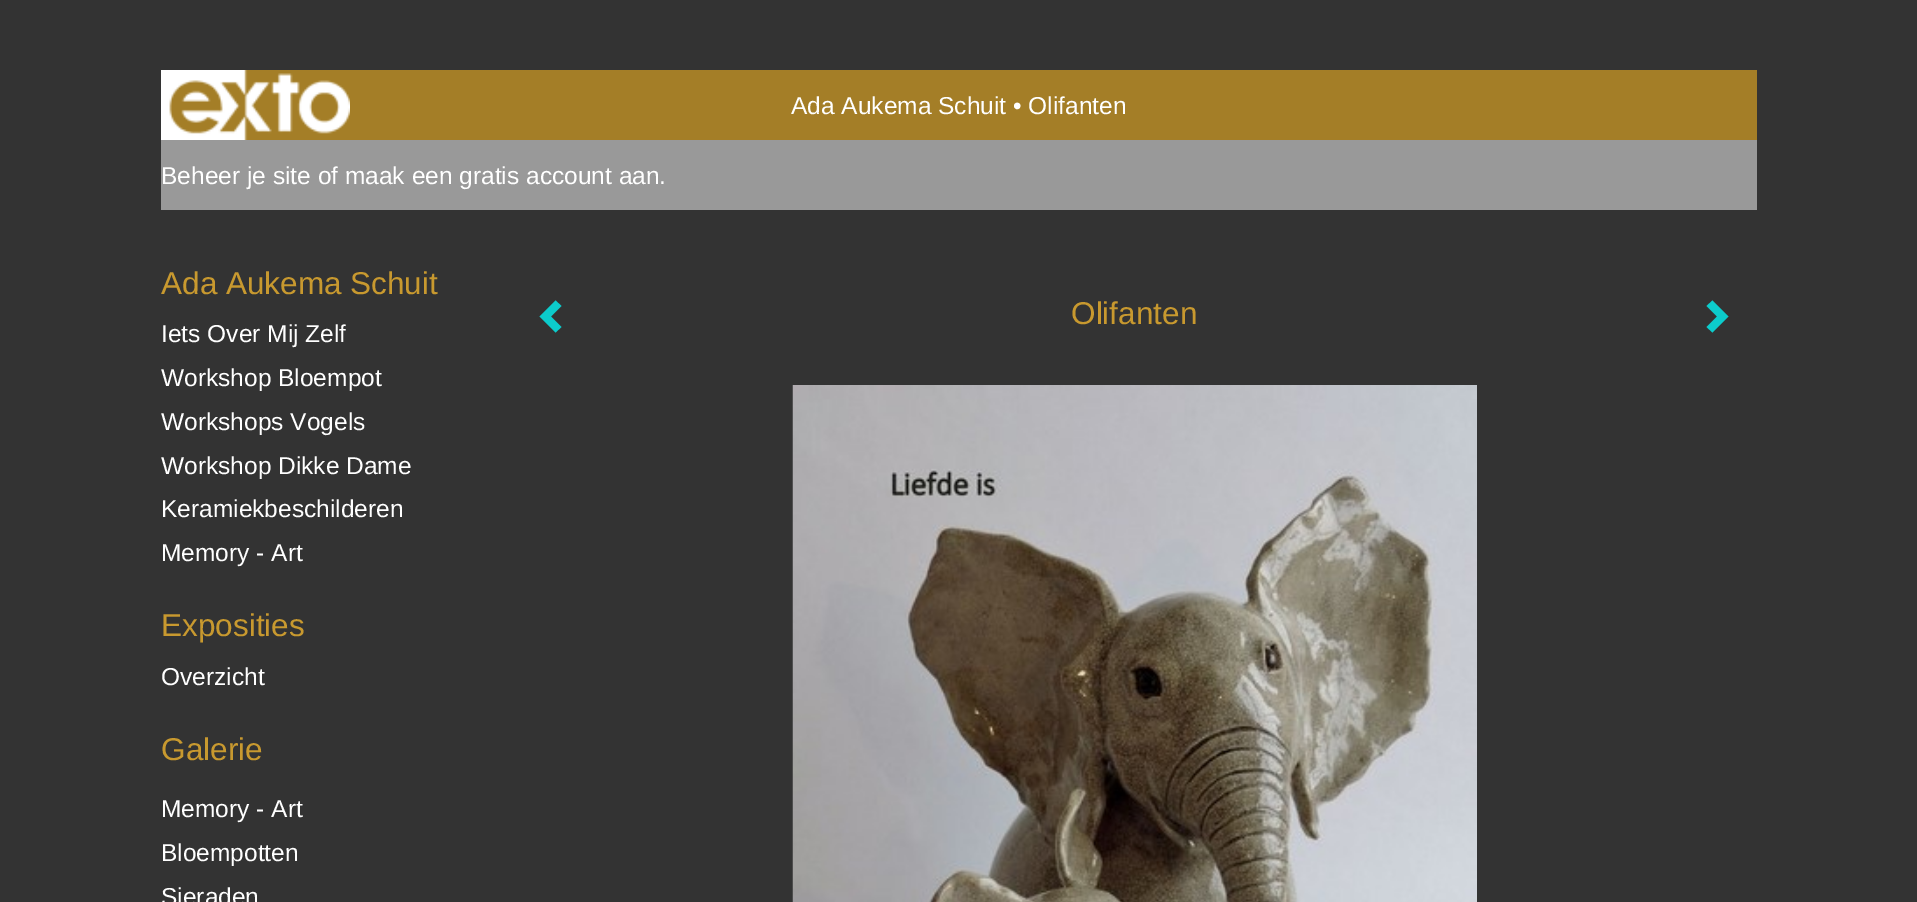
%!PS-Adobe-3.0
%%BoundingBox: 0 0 1917 902
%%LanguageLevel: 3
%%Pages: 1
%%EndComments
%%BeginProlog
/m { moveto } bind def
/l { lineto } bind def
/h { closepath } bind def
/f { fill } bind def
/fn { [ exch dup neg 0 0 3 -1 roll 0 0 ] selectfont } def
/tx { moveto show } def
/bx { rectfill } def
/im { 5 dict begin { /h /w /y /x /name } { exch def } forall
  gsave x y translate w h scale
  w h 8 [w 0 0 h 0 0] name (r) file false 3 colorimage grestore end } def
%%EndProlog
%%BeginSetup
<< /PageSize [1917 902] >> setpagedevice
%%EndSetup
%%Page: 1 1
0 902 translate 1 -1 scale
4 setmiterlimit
0.2 setgray
0 0 1917 902 bx
0.643 0.494 0.153 setrgbcolor
169 70 1588 70 bx
(image0.raw) 161 70 189 70 im
/LiberationSans-Regular 24.5 fn
1 setgray
(Ada Aukema Schuit • Olifanten) 791 114 tx
0.6 setgray
161 140 1596 70 bx
1 setgray
(Beheer je site of maak een gratis account aan.) 161 184 tx
/LiberationSans-Regular 31.5 fn
0.784 0.6 0.184 setrgbcolor
(Ada Aukema Schuit) 161 294 tx
/LiberationSans-Regular 24.5 fn
1 setgray
(Iets Over Mij Zelf) 161 342 tx
(Workshop Bloempot) 161 386 tx
(Workshops Vogels) 161 430 tx
(Workshop Dikke Dame) 161 474 tx
(Keramiekbeschilderen) 161 517 tx
(Memory - Art) 161 561 tx
/LiberationSans-Regular 31.5 fn
0.784 0.6 0.184 setrgbcolor
(Exposities) 161 636 tx
/LiberationSans-Regular 24.5 fn
1 setgray
(Overzicht) 161 685 tx
/LiberationSans-Regular 31.5 fn
0.784 0.6 0.184 setrgbcolor
(Galerie) 161 760 tx
/LiberationSans-Regular 24.5 fn
1 setgray
(Memory - Art) 161 817 tx
(Bloempotten) 161 861 tx
(Sieraden) 161 905 tx
0.047 0.8 0.8 setrgbcolor
561.5 306 m 551 316.5 l 561.5 327 l 555.5 332.5 l 539.5 316.5 l 555.5 300.5 l h f
/LiberationSans-Regular 31.5 fn
0.784 0.6 0.184 setrgbcolor
(Olifanten) 1071 324 tx
0.047 0.8 0.8 setrgbcolor
1728.5 316.5 m 1712.5 332.5 l 1706.5 327 l 1717 316.5 l 1706.5 306 l 1712.5 300.5 l h f
(image1.raw) 792 385 685 517 im
showpage
%%EOF
